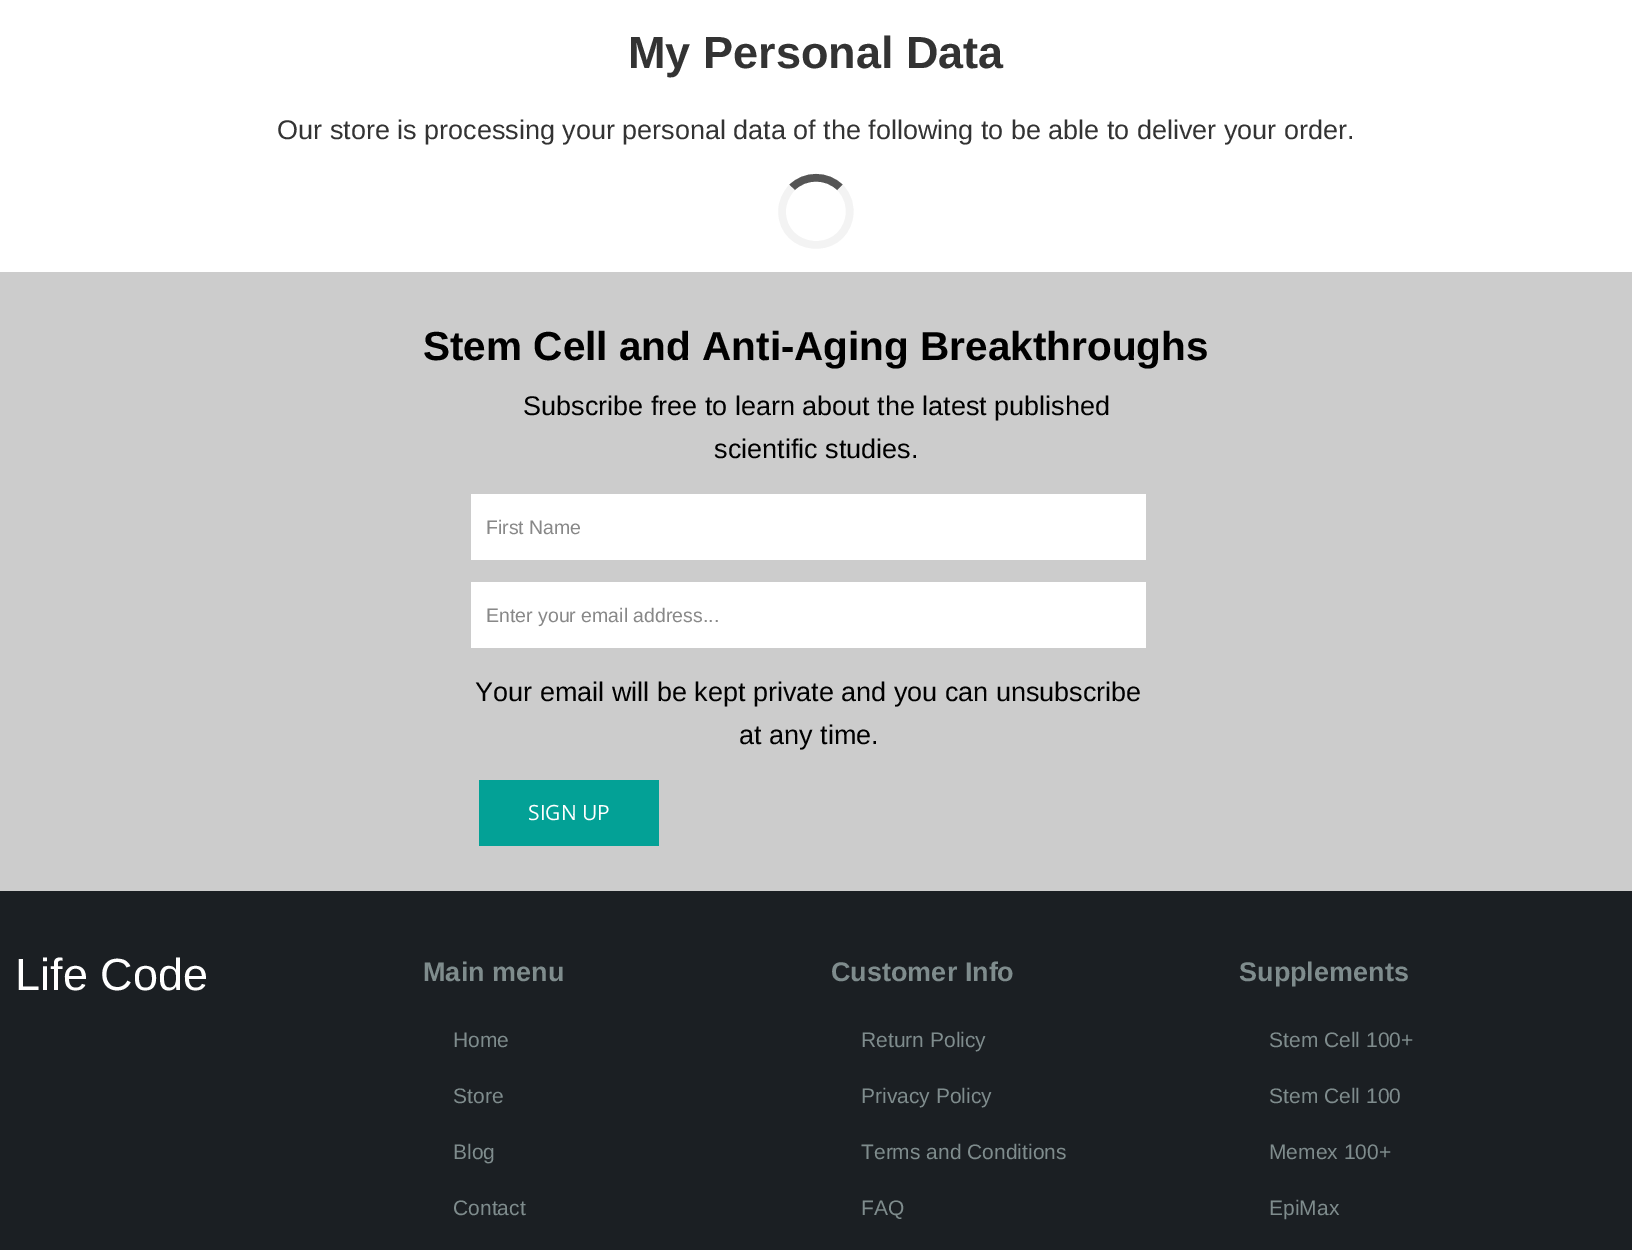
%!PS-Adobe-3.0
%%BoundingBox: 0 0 1632 1250
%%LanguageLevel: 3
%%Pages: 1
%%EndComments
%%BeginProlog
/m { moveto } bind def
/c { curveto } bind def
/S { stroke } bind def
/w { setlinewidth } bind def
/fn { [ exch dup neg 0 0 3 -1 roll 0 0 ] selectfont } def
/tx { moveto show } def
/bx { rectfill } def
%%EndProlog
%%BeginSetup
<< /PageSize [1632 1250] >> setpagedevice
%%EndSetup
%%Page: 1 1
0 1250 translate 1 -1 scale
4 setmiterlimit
1 setgray
0 0 1632 1250 bx
/LiberationSans-Bold 45 fn
0.2 setgray
(My Personal Data) 628 68 tx
/LiberationSans-Regular 27 fn
(Our store is processing your personal data of the following to be able to deliver your order.) 277 139 tx
0.333 setgray
7.5 w
792 187.5 m 805 174.5 827 174.5 840 187.5 c S
0.953 setgray
840 187.5 m 848 195.5 851.5 207 849 218 c 841 257.5 782.5 252 782 211.5 c 782 202.5 786 194 792 187.5 c S
0.8 setgray
0 272 1632 619 bx
/LiberationSans-Bold 40.5 fn
0 setgray
(Stem Cell and Anti-Aging Breakthroughs) 423 360 tx
/LiberationSans-Regular 27 fn
(Subscribe free to learn about the latest published) 523 415 tx
(scientific studies.) 714 458 tx
1 setgray
471 494 675 66 bx
/LiberationSans-Regular 19.5 fn
0.533 setgray
(First Name) 486 534 tx
1 setgray
471 582 675 66 bx
0.533 setgray
(Enter your email address...) 486 622 tx
/LiberationSans-Regular 27 fn
0 setgray
(Your email will be kept private and you can unsubscribe) 475 701 tx
(at any time.) 739 744 tx
0.012 0.631 0.588 setrgbcolor
479 780 180 66 bx
/OpenSans-Regular 21 fn
1 setgray
(SIGN UP) 528 820 tx
0.106 0.122 0.137 setrgbcolor
0 891 1632 359 bx
/LiberationSans-Regular 45 fn
1 setgray
(Life Code) 15 990 tx
/LiberationSans-Bold 27 fn
0.498 0.549 0.553 setrgbcolor
(Main menu) 423 981 tx
/LiberationSans-Regular 21 fn
(Home) 453 1047 tx
(Store) 453 1103 tx
(Blog) 453 1159 tx
(Contact) 453 1215 tx
/LiberationSans-Bold 27 fn
(Customer Info) 831 981 tx
/LiberationSans-Regular 21 fn
(Return Policy) 861 1047 tx
(Privacy Policy) 861 1103 tx
(Terms and Conditions) 861 1159 tx
(FAQ) 861 1215 tx
/LiberationSans-Bold 27 fn
(Supplements) 1239 981 tx
/LiberationSans-Regular 21 fn
(Stem Cell 100+) 1269 1047 tx
(Stem Cell 100) 1269 1103 tx
(Memex 100+) 1269 1159 tx
(EpiMax) 1269 1215 tx
showpage
%%EOF
